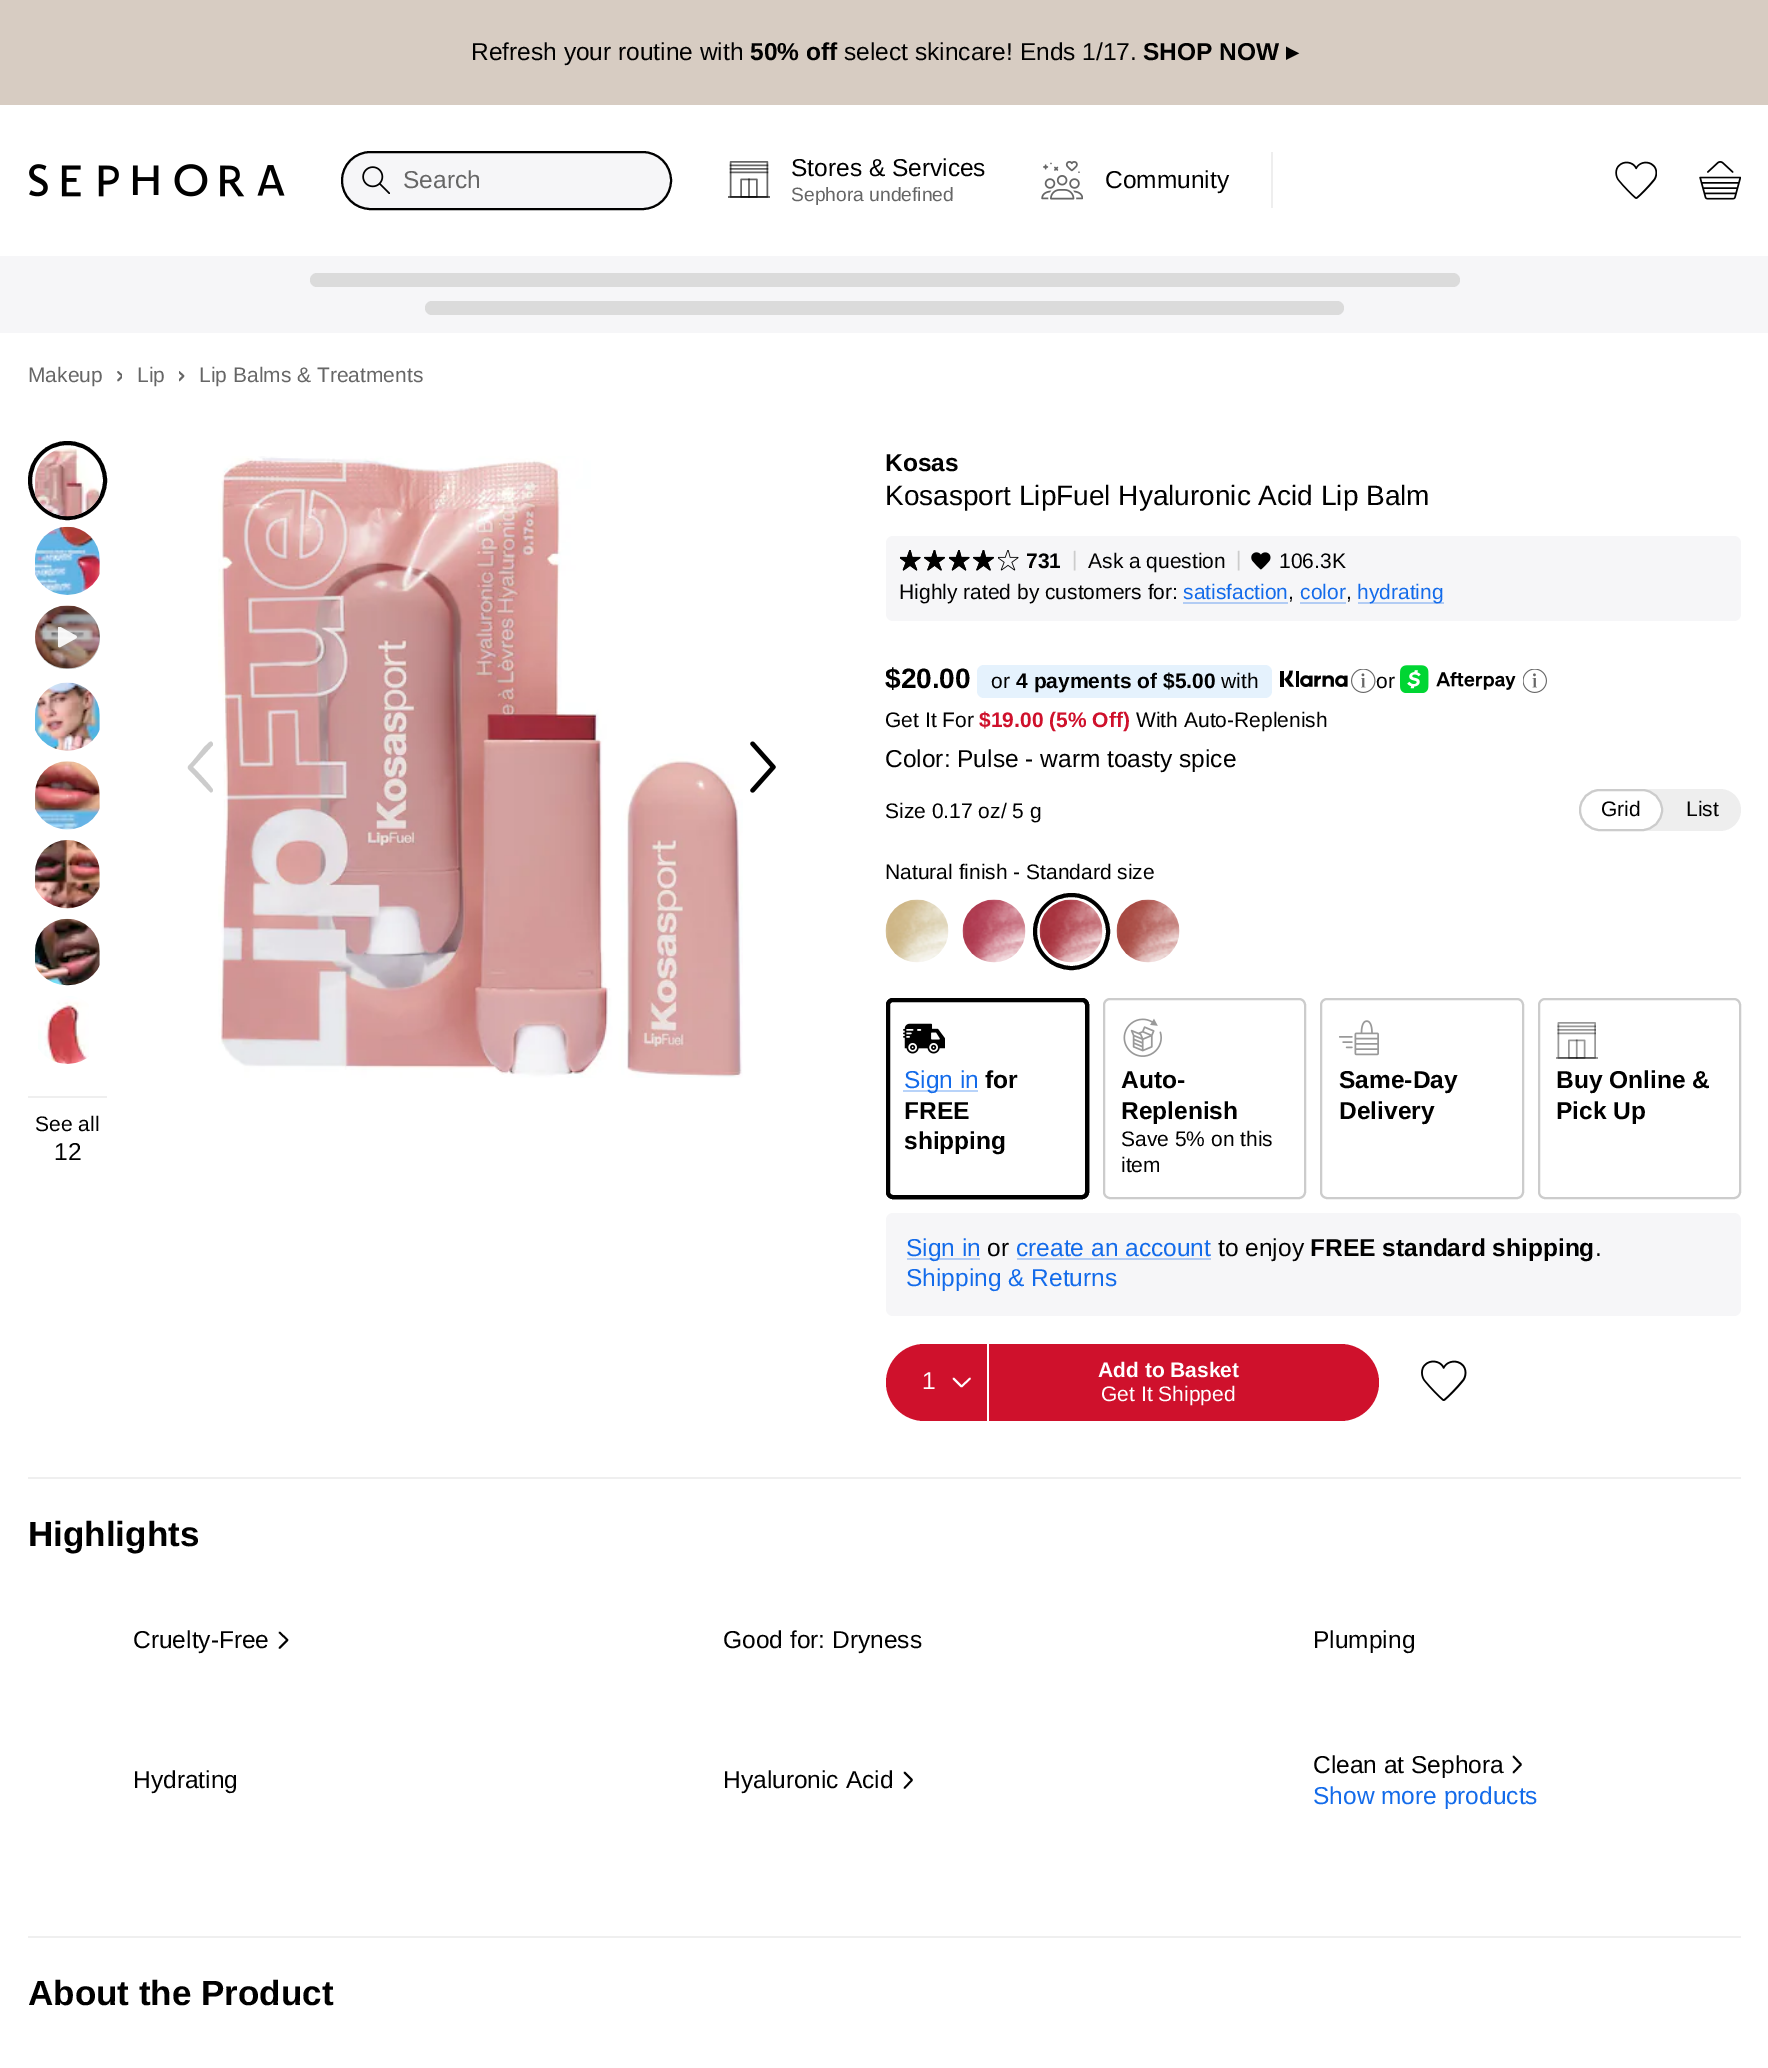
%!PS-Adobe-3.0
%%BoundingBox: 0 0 1768 2068
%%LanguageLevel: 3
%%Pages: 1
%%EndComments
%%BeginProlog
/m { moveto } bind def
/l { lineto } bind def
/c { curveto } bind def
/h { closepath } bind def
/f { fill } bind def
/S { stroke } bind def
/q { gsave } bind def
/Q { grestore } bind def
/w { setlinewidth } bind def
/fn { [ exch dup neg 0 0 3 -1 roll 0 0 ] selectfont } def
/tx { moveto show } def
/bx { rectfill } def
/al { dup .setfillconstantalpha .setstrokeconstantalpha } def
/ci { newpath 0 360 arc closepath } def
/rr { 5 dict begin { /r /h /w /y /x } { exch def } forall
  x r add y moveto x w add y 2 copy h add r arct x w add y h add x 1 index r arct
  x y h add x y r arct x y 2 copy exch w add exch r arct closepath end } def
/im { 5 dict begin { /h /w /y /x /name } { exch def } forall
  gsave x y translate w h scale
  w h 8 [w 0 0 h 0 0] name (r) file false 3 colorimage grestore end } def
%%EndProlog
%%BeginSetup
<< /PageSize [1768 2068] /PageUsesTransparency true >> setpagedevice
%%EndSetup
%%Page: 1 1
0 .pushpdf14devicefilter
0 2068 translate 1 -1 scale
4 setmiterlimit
1 setgray
0 0 1768 2068 bx
0.843 0.8 0.761 setrgbcolor
0 0 1768 105 bx
/LiberationSans-Regular 24.5 fn
0 setgray
(Refresh your routine with) 471 60 tx
/LiberationSans-Bold 24.5 fn
(50% off) 750 60 tx
/LiberationSans-Regular 24.5 fn
(select skincare! Ends 1/17.) 844 60 tx
/LiberationSans-Bold 24.5 fn
(SHOP NOW) 1143 60 tx
/DejaVuSans-Bold 24.5 fn
(▸) 1286 60 tx
(image0.raw) 29 164 256 33 im
0.965 0.965 0.973 setrgbcolor
342 152 329 57 28.5 rr q f Q
0 setgray
2 w
S
(image1.raw) 362 166 28 28 im
/LiberationSans-Regular 24.5 fn
0.4 setgray
(Search) 403 188 tx
(image2.raw) 728 161 42 37 im
0 setgray
(Stores & Services) 791 176 tx
/LiberationSans-Regular 19.25 fn
0.4 setgray
(Sephora undefined) 791 201 tx
(image3.raw) 1041 161 42 39 im
/LiberationSans-Regular 24.5 fn
0 setgray
(Community) 1105 188 tx
0.933 setgray
1271 152 2 56 bx
(image4.raw) 1615 161 42 38 im
(image5.raw) 1699 161 42 39 im
0.965 0.965 0.973 setrgbcolor
0 256 1768 77 bx
1 setgray
310 273 1150 14 7 rr f
0.14 al
0 setgray
310 273 1150 14 7 rr f
1 al
1 setgray
425 301 919 14 7 rr f
0.14 al
0 setgray
425 301 919 14 7 rr f
/LiberationSans-Regular 21 fn
1 al
0.4 setgray
(Makeup) 28 382 tx
q
117 371 5 11 rectclip
1.8 w
1 setlinecap
1 setlinejoin
118 380.5 m 122.5 376 l 118 372 l S
Q
(Lip) 137 382 tx
q
179 371 7 11 rectclip
1.8 w
1 setlinecap
1 setlinejoin
179 380.5 m 183.5 376 l 179 372 l S
Q
(Lip Balms & Treatments) 199 382 tx
/LiberationSans-Bold 24.5 fn
0 setgray
(Kosas) 885 471 tx
/LiberationSans-Regular 28 fn
(Kosasport LipFuel Hyaluronic Acid Lip Balm) 885 505 tx
0.965 0.965 0.973 setrgbcolor
886 536 855 85 7 rr f
(image6.raw) 900 550 21 21 im
(image7.raw) 924 550 21 21 im
(image6.raw) 949 550 21 21 im
(image7.raw) 973 550 21 21 im
(image6.raw) 998 550 21 21 im
(image8.raw) 900 550 21 21 im
(image9.raw) 924 550 21 21 im
(image8.raw) 949 550 21 21 im
(image9.raw) 973 550 21 21 im
/LiberationSans-Bold 21 fn
0 setgray
(731) 1026 568 tx
/LiberationSans-Regular 21 fn
0.8 setgray
(|) 1072 566 tx
0 setgray
(Ask a question) 1088 568 tx
0.8 setgray
(|) 1236 566 tx
(image10.raw) 1251 552 20 18 im
0 setgray
(106.3K) 1279 568 tx
(Highly rated by customers for:) 899 599 tx
0.075 0.42 0.918 setrgbcolor
(satisfaction) 1183 599 tx
0.698 0.8 0.957 setrgbcolor
1183 602 105 2 bx
0 setgray
(,) 1288 599 tx
0.075 0.42 0.918 setrgbcolor
(color) 1300 599 tx
0.698 0.8 0.957 setrgbcolor
1300 602 46 2 bx
0 setgray
(,) 1346 599 tx
0.698 0.8 0.957 setrgbcolor
1358 602 86 2 bx
0.075 0.42 0.918 setrgbcolor
(hydrating) 1357 599 tx
/LiberationSans-Bold 28 fn
0 setgray
($20.00) 885 688 tx
0.898 0.949 0.992 setrgbcolor
977 665 295 33 7 rr f
/LiberationSans-Regular 21 fn
0 setgray
(or) 991 688 tx
/LiberationSans-Bold 21 fn
(4 payments of $5.00) 1016 688 tx
/LiberationSans-Regular 21 fn
(with) 1221 688 tx
(image11.raw) 1280 670 68 17 im
(image12.raw) 1351 669 25 24 im
(or) 1376 688 tx
(image13.raw) 1400 665 116 28 im
(image14.raw) 1523 669 24 24 im
(Get It For) 885 727 tx
/LiberationSans-Bold 21 fn
0.812 0.067 0.173 setrgbcolor
($19.00 \(5% Off\)) 979 727 tx
/LiberationSans-Regular 21 fn
0 setgray
(With Auto-Replenish) 1136 727 tx
0.8 setgray
212 742 m 213 743 213 744 213 745 c 193 767 l 196 770 213 788 213 790 c 213 792 211 793 210 792 c 195 776 l 187 767 185 769 192 762 c 205 746 l 207 745 210 740 212 742 c h f
(image15.raw) 218 456 525 622 im
(image16.raw) 750 741 26 52 im
0 setgray
4 w
67.5 480.5 37.5 ci S
(image17.raw) 35 448 65 69 im
(image18.raw) 35 526 65 69 im
(image19.raw) 35 605 65 64 im
0.25 al
35 606 65 63 31.5 rr f
1 al
(image20.raw) 58 627 19 21 im
(image21.raw) 35 682 65 69 im
(image22.raw) 35 761 65 69 im
(image23.raw) 35 840 65 69 im
(image24.raw) 35 918 65 68 im
(image25.raw) 38 996 51 68 im
0.937 setgray
28 1096 79 2 bx
0 setgray
(See all) 35 1131 tx
/LiberationSans-Regular 24.5 fn
(12) 54 1160 tx
(Color: Pulse - warm toasty spice) 885 767 tx
/LiberationSans-Regular 21 fn
(Size 0.17 oz/ 5 g) 885 818 tx
0.933 setgray
1579 789 162 42 21 rr f
1 setgray
1580 790 82 40 20 rr q f Q
0.8 setgray
2 w
S
0 setgray
(Grid) 1601 816 tx
(List) 1686 816 tx
(Natural finish - Standard size) 885 879 tx
(image26.raw) 885 899 64 64 im
(image27.raw) 962 899 64 64 im
4 w
1071.5 931.5 36.5 ci S
(image28.raw) 1039 899 64 64 im
(image29.raw) 1116 899 64 64 im
2 w
887 999 201 199 6 rr S
(image30.raw) 903 1023 42 31 im
0.722 0.827 0.976 setrgbcolor
903 1090 75 2 bx
0 setgray
4 w
888 1000 199 197 5 rr S
/LiberationSans-Regular 24.5 fn
0.075 0.42 0.918 setrgbcolor
(Sign in) 904 1088 tx
/LiberationSans-Bold 24.5 fn
0 setgray
(for) 985 1088 tx
(FREE) 904 1119 tx
(shipping) 904 1149 tx
0.965 0.965 0.973 setrgbcolor
886 1213 855 103 7 rr f
0.698 0.8 0.957 setrgbcolor
907 1258 73 2 bx
/LiberationSans-Regular 24.5 fn
0.075 0.42 0.918 setrgbcolor
(Sign in) 906 1256 tx
0 setgray
(or) 987 1256 tx
0.075 0.42 0.918 setrgbcolor
(create an account) 1016 1256 tx
0.698 0.8 0.957 setrgbcolor
1017 1258 194 2 bx
0 setgray
(to enjoy) 1218 1256 tx
/LiberationSans-Bold 24.5 fn
(FREE standard shipping) 1310 1256 tx
/LiberationSans-Regular 24.5 fn
(.) 1595 1256 tx
0.075 0.42 0.918 setrgbcolor
(Shipping & Returns) 906 1286 tx
0.8 setgray
2 w
1104 999 201 199 6 rr S
(image31.raw) 1123 1018 39 39 im
/LiberationSans-Bold 24.5 fn
0 setgray
(Auto-) 1121 1088 tx
(Replenish) 1121 1119 tx
/LiberationSans-Regular 21 fn
(Save 5% on this) 1121 1146 tx
(item) 1121 1172 tx
0.8 setgray
1321 999 202 199 6 rr S
(image32.raw) 1339 1020 40 36 im
/LiberationSans-Bold 24.5 fn
0 setgray
(Same-Day) 1339 1088 tx
(Delivery) 1339 1119 tx
0.8 setgray
1539 999 201 199 6 rr S
(image33.raw) 1556 1022 42 37 im
0 setgray
(Buy Online &) 1556 1088 tx
(Pick Up) 1556 1119 tx
0.812 0.067 0.173 setrgbcolor
886 1344 493 77 38.5 rr f
1 setgray
987 1344 2 77 bx
/LiberationSans-Regular 24.5 fn
(1) 922 1389 tx
1.8 w
1 setlinecap
1 setlinejoin
953.5 1378.5 m 961.5 1386.5 l 970 1378.5 l S
/LiberationSans-Bold 21 fn
(Add to Basket) 1098 1377 tx
/LiberationSans-Regular 21 fn
(Get It Shipped) 1101 1401 tx
(image34.raw) 1421 1360 46 41 im
0.937 setgray
28 1477 1713 2 bx
/LiberationSans-Bold 35 fn
0 setgray
(Highlights) 28 1546 tx
/LiberationSans-Regular 24.5 fn
(Cruelty-Free) 133 1648 tx
279.5 1648 m 287.5 1640 l 279.5 1632.5 l S
(Good for: Dryness) 723 1648 tx
(Plumping) 1313 1648 tx
(Hydrating) 133 1788 tx
(Hyaluronic Acid) 723 1788 tx
904.5 1788 m 912 1780 l 904.5 1772.5 l S
(Clean at Sephora) 1313 1773 tx
1513.5 1772.5 m 1521 1764.5 l 1513.5 1756.5 l S
0.075 0.42 0.918 setrgbcolor
(Show more products) 1313 1804 tx
0.937 setgray
28 1936 1713 2 bx
/LiberationSans-Bold 35 fn
0 setgray
(About the Product) 28 2005 tx
.poppdf14devicefilter showpage
%%EOF
